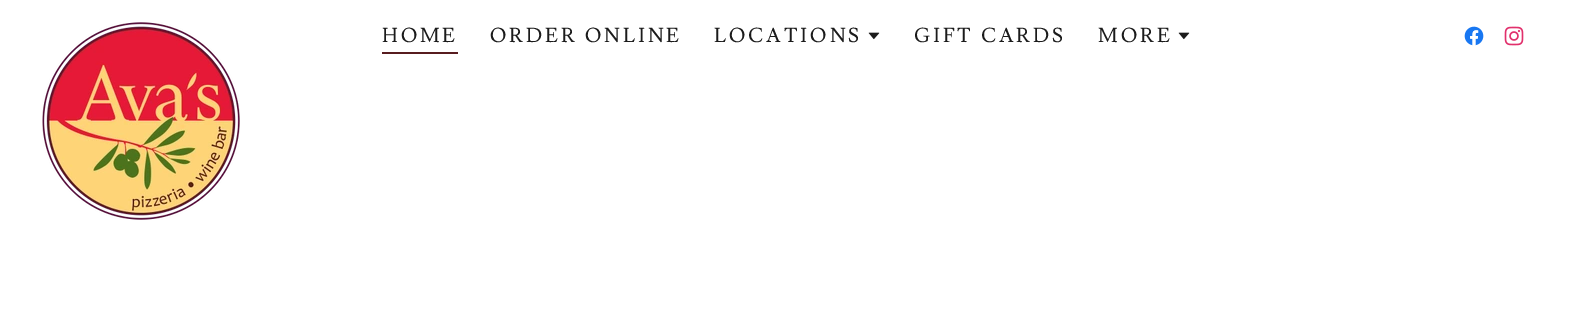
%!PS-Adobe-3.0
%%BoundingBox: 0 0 1574 322
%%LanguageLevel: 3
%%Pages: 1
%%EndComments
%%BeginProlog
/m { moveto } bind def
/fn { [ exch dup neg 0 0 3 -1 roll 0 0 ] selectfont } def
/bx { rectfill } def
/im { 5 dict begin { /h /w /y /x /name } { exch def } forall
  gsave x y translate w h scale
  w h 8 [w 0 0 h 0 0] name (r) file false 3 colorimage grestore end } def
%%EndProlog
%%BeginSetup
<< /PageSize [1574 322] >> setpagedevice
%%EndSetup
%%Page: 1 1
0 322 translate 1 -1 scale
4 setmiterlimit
1 setgray
0 0 1574 322 bx
(image0.raw) 42 22 198 198 im
0.341 0.11 0.122 setrgbcolor
382 52 76 2 bx
/Lusitana-Regular 20 fn
0.106 setgray
382 42 m 2.9 0 (HOME) ashow
490 42 m 2.9 0 (ORDER ONLINE) ashow
714 42 m 2.9 0 (LOCATIONS) ashow
(image1.raw) 868 32 12 8 im
914 42 m 2.9 0 (GIFT CARDS) ashow
1098 42 m 2.9 0 (MORE) ashow
(image1.raw) 1178 32 12 8 im
(image2.raw) 1464 26 20 20 im
(image3.raw) 1504 26 20 20 im
showpage
%%EOF
